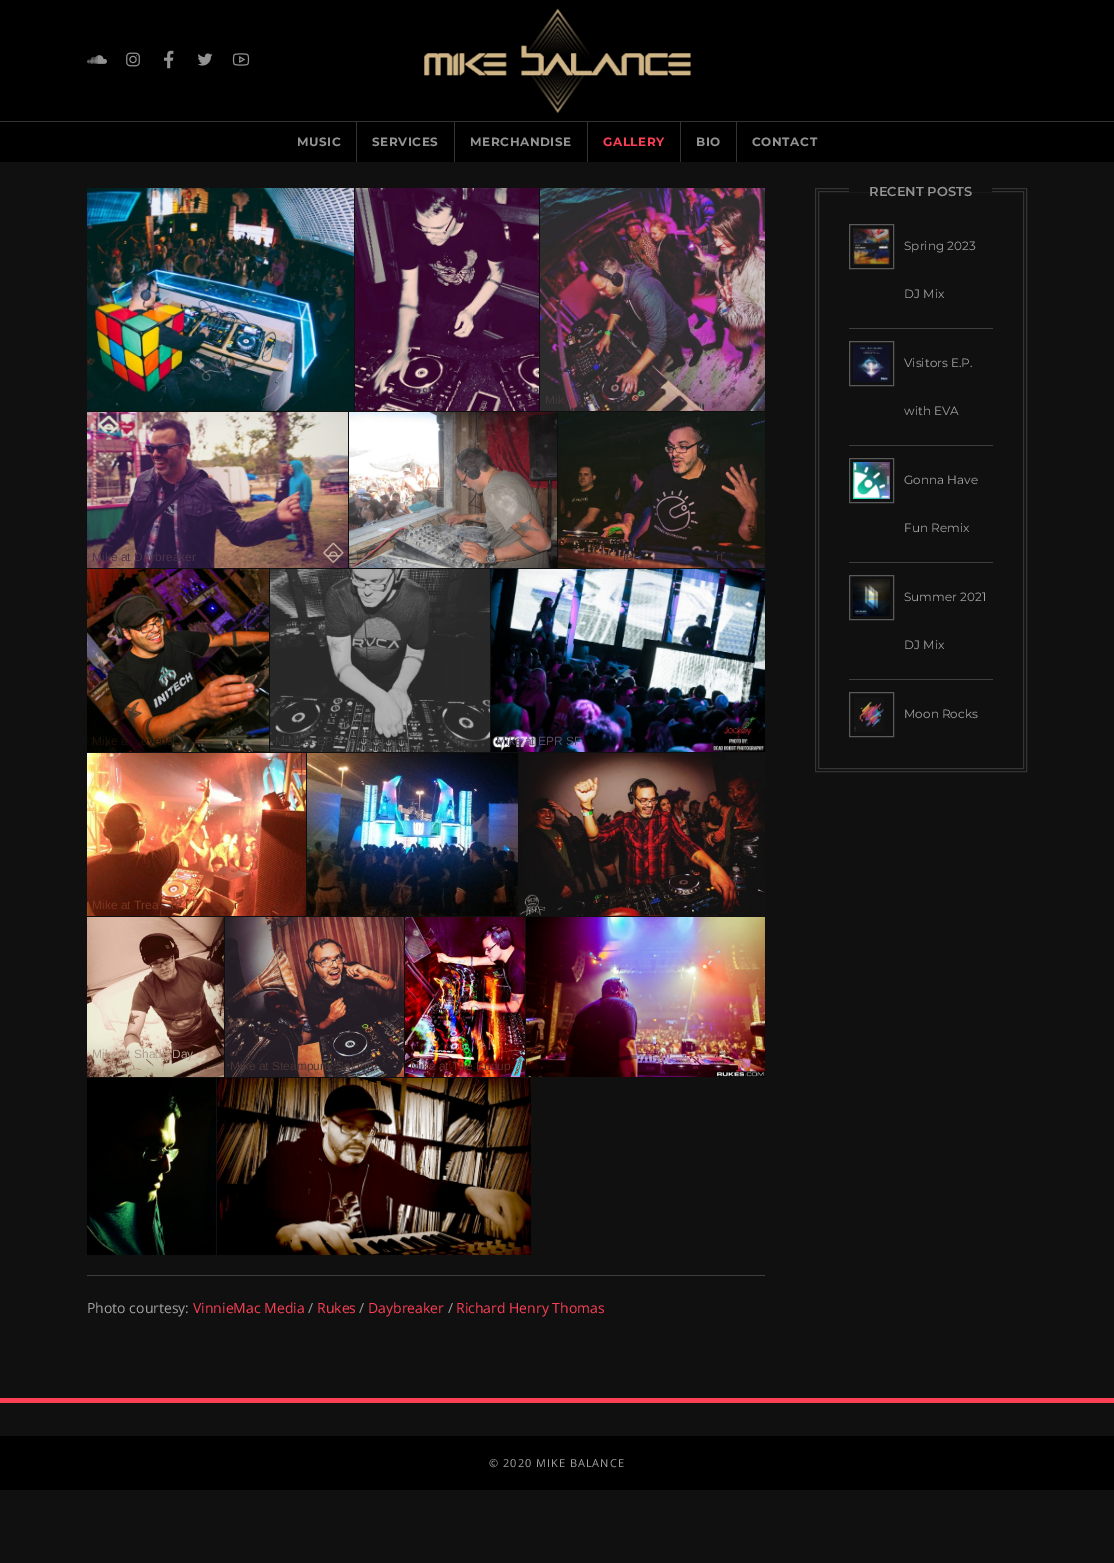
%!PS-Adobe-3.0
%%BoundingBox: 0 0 1114 1563
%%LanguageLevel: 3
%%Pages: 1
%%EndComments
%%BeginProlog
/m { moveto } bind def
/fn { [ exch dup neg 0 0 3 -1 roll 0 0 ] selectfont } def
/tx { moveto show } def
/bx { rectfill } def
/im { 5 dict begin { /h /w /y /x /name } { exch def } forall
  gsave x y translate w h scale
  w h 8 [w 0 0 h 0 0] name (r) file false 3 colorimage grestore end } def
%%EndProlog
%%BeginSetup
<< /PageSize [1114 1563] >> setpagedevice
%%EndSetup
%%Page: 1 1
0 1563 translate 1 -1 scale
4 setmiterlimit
0.063 setgray
0 0 1114 1563 bx
0 setgray
0 0 1114 162 bx
(image0.raw) 87 55 20 9 im
(image1.raw) 126 52 14 15 im
(image2.raw) 164 50 10 19 im
(image3.raw) 197 53 16 13 im
(image4.raw) 232 53 18 13 im
(image5.raw) 424 8 267 105 im
0.2 setgray
0 121 1114 1 bx
356 122 1 40 bx
/Montserrat-Bold 12 fn
0.576 setgray
297 146 m 0.6 0 (MUSIC) ashow
0.2 setgray
454 122 1 40 bx
0.576 setgray
372 146 m 0.6 0 (SERVICES) ashow
0.2 setgray
587 122 1 40 bx
0.576 setgray
470 146 m 0.6 0 (MERCHANDISE) ashow
0.2 setgray
680 122 1 40 bx
0.984 0.251 0.333 setrgbcolor
603 146 m 0.6 0 (GALLERY) ashow
0.2 setgray
736 122 1 40 bx
0.576 setgray
696 146 m 0.6 0 (BIO) ashow
752 146 m 0.6 0 (CONTACT) ashow
(image6.raw) 87 188 267 223 im
(image7.raw) 355 188 184 223 im
(image8.raw) 540 188 225 223 im
/LiberationSans-Regular 12 fn
0.271 0.224 0.247 setrgbcolor
(Mik) 545 404 tx
(image9.raw) 87 412 261 156 im
0.306 0.2 0.294 setrgbcolor
(Mike at Daybreaker) 92 561 tx
(image10.raw) 349 412 208 156 im
(image11.raw) 558 412 207 156 im
0.282 0.18 0.196 setrgbcolor
(te) 623 561 tx
(rt) 716 561 tx
(image12.raw) 87 569 182 183 im
0.118 0.067 0.027 setrgbcolor
(Mike a) 92 745 tx
(eyenda) 141 745 tx
(image13.raw) 270 569 220 183 im
0.227 setgray
(Mike at EPR) 275 745 tx
(image14.raw) 491 569 274 183 im
0.337 0.302 0.404 setrgbcolor
(Mike at EPR SF) 496 745 tx
(image15.raw) 87 753 219 163 im
0.486 0.204 0.114 setrgbcolor
(Mike at Trea) 92 909 tx
(re I) 171 909 tx
(r) 234 909 tx
(image16.raw) 307 753 211 163 im
(image17.raw) 519 753 246 163 im
(image18.raw) 87 917 137 160 im
0.69 0.612 0.541 setrgbcolor
(Mike at Shade Day) 92 1058 tx
(image19.raw) 526 917 239 160 im
(image20.raw) 225 917 179 160 im
0.294 0.208 0.204 setrgbcolor
(Mike at Steampunk Saloon) 230 1070 tx
(image21.raw) 405 917 120 160 im
0.416 0.169 0.165 setrgbcolor
(Mike at The Endup) 410 1070 tx
(image22.raw) 87 1078 129 177 im
(image23.raw) 217 1078 314 177 im
0.039 0.016 0.004 setrgbcolor
(n’) 283 1248 tx
0.243 setgray
87 1275 678 1 bx
/OpenSans-Regular 14 fn
0.635 setgray
(Photo courtesy:) 87 1313 tx
0.984 0.251 0.333 setrgbcolor
(VinnieMac Media) 193 1313 tx
0.635 setgray
(/) 308 1313 tx
0.984 0.251 0.333 setrgbcolor
(Rukes) 317 1313 tx
0.635 setgray
(/) 359 1313 tx
0.984 0.251 0.333 setrgbcolor
(Daybreaker) 368 1313 tx
0.635 setgray
(/) 448 1313 tx
0.984 0.251 0.333 setrgbcolor
(Richard Henry Thomas) 456 1313 tx
0.204 setgray
815.5 188.5 211 583 rectstroke
818.5 191.5 205 577 rectstroke
0.063 setgray
849 188 143 4 bx
/Montserrat-SemiBold 13 fn
0.576 setgray
(RECENT POSTS) 869 196 tx
0.243 setgray
849 328 144 1 bx
0.353 setgray
849.5 224.5 44 44 rectstroke
(image24.raw) 853 228 37 37 im
/Montserrat-Regular 12 fn
0.635 setgray
(Spring 2023) 904 250 tx
(DJ Mix) 904 298 tx
0.243 setgray
849 445 144 1 bx
0.353 setgray
849.5 341.5 44 44 rectstroke
(image25.raw) 853 345 37 37 im
0.635 setgray
(Visitors E.P.) 904 367 tx
(with EVA) 904 415 tx
0.243 setgray
849 562 144 1 bx
0.353 setgray
849.5 458.5 44 44 rectstroke
(image26.raw) 853 462 37 37 im
0.635 setgray
(Gonna Have) 904 484 tx
(Fun Remix) 904 532 tx
0.243 setgray
849 679 144 1 bx
0.353 setgray
849.5 575.5 44 44 rectstroke
(image27.raw) 853 579 37 37 im
0.635 setgray
(Summer 2021) 904 601 tx
(DJ Mix) 904 649 tx
0.353 setgray
849.5 692.5 44 44 rectstroke
(image28.raw) 854 697 30 35 im
0.635 setgray
(Moon Rocks) 904 718 tx
0.984 0.251 0.333 setrgbcolor
0 1398 1114 5 bx
0 setgray
0 1436 1114 54 bx
/OpenSans-Regular 11 fn
0.635 setgray
489 1467 m 1 0 (© 2020 MIKE BALANCE) ashow
showpage
%%EOF
